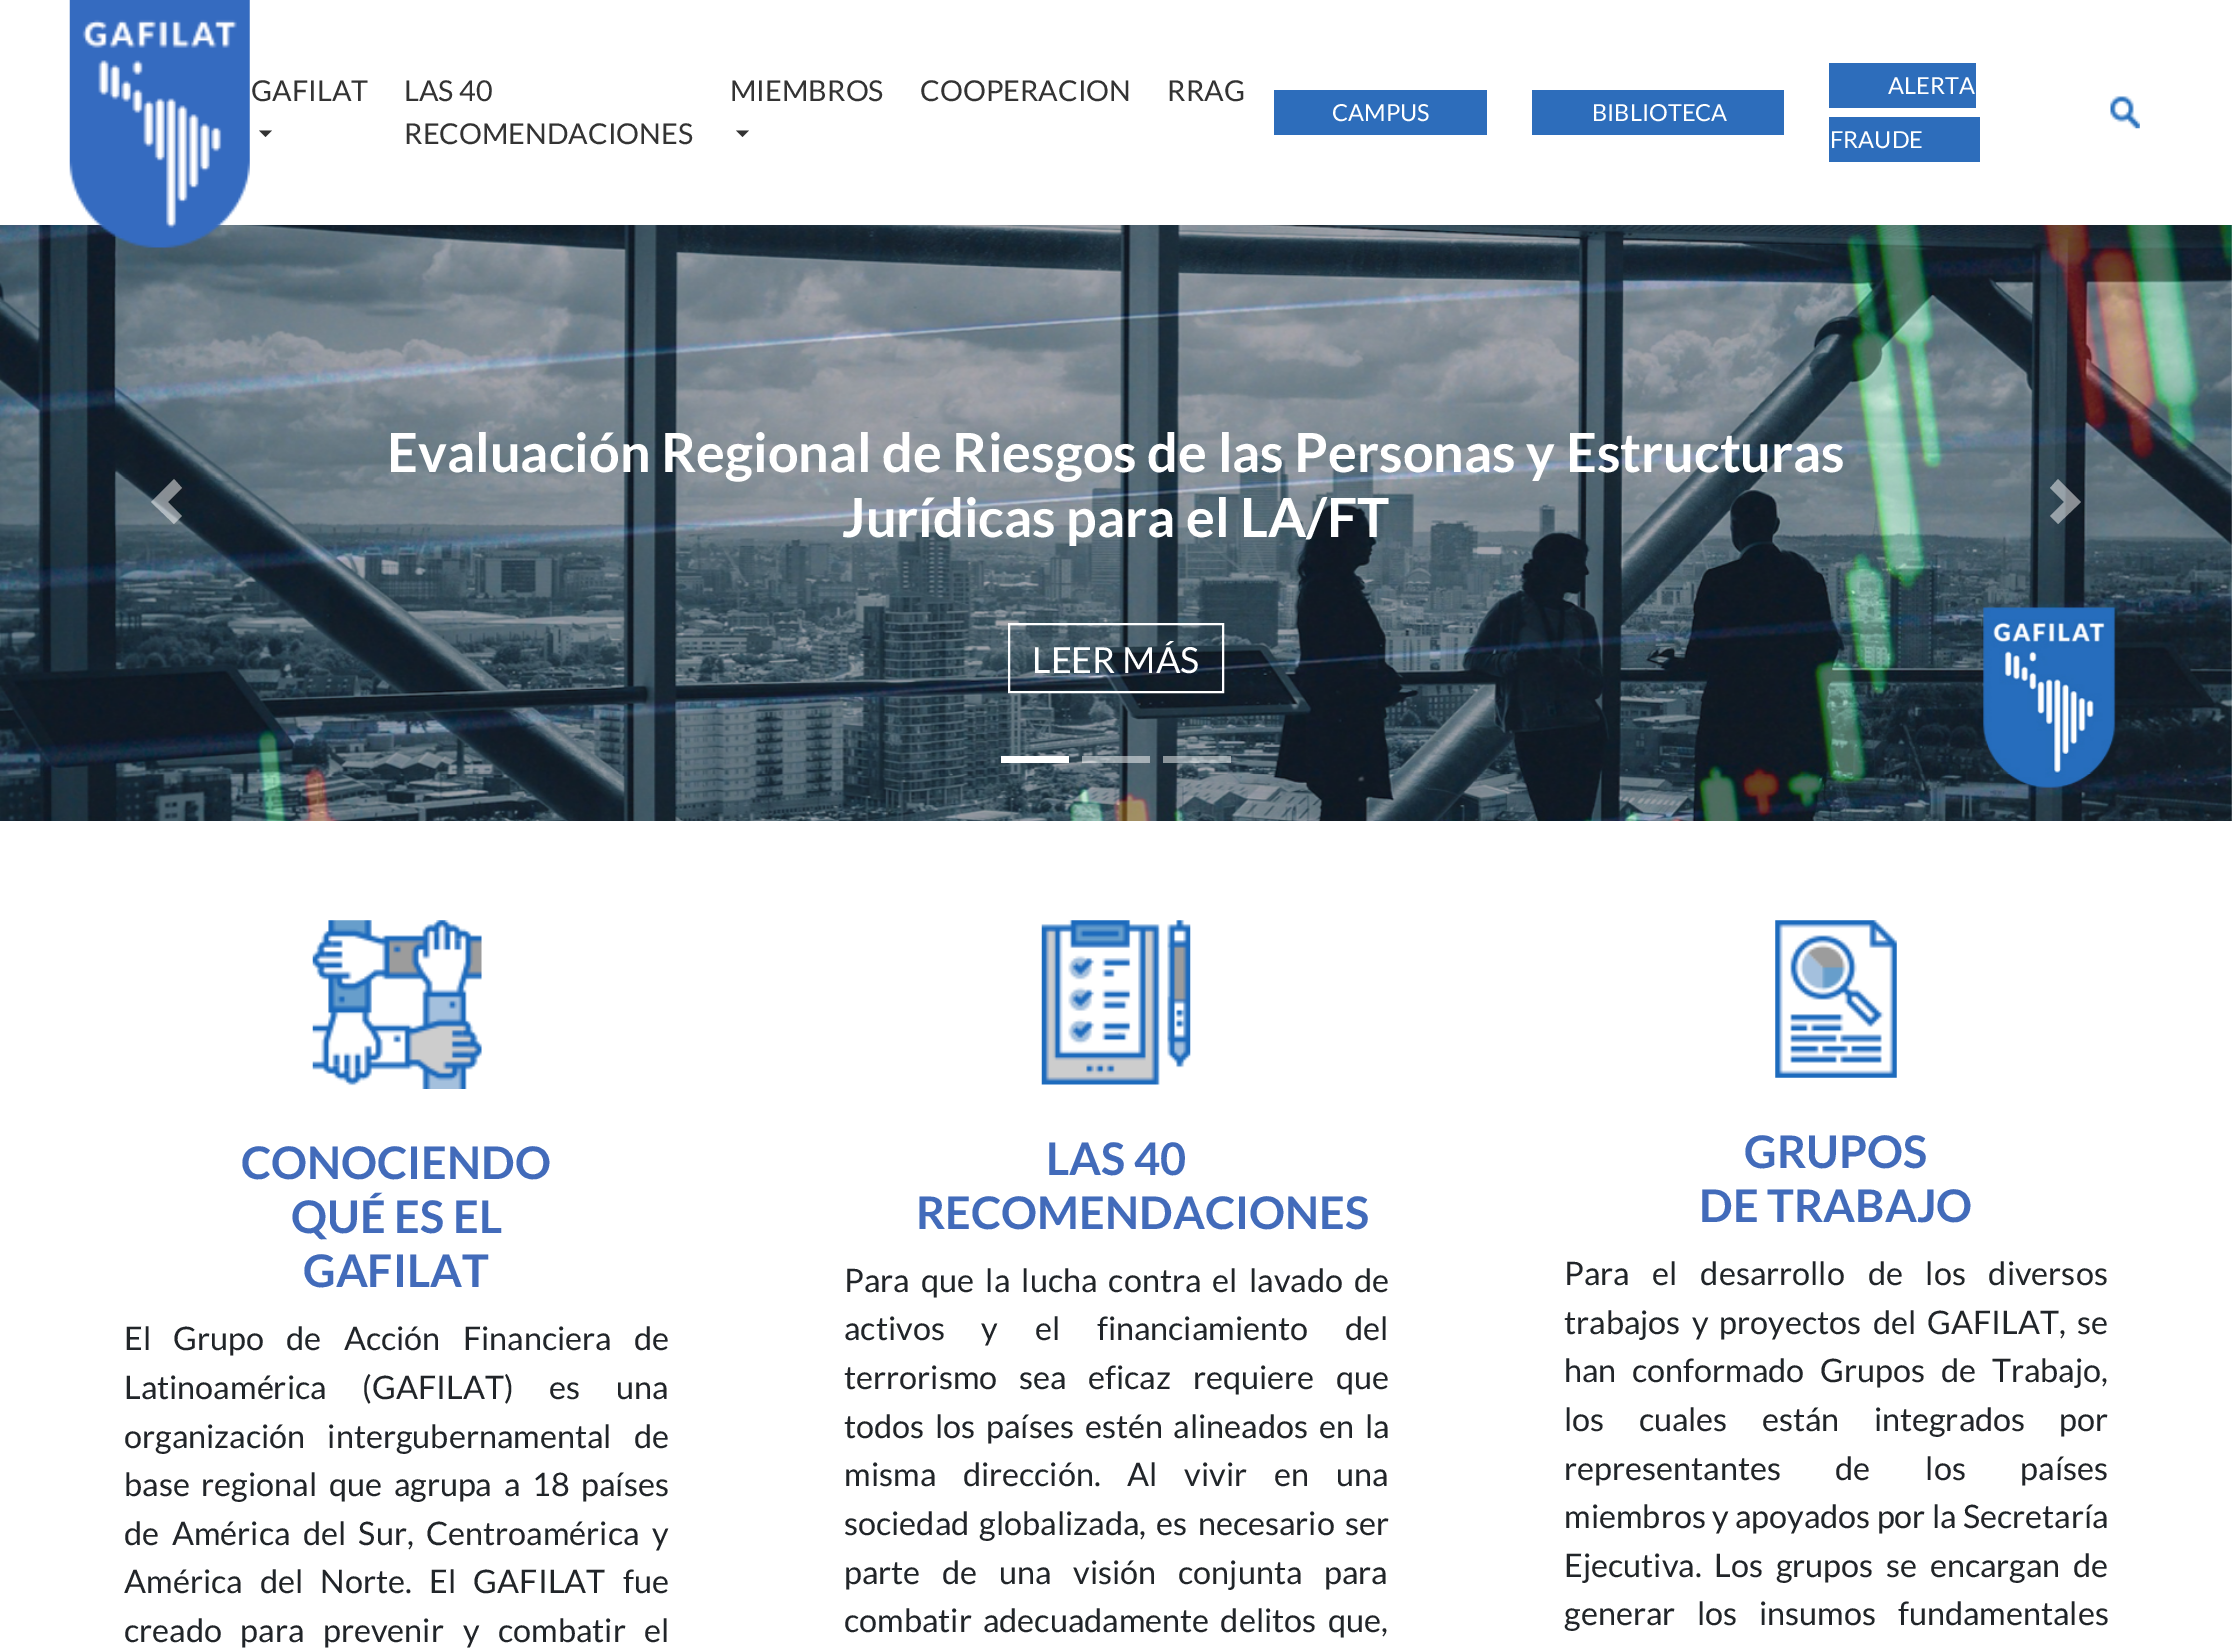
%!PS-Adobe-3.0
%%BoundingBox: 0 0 2232 1651
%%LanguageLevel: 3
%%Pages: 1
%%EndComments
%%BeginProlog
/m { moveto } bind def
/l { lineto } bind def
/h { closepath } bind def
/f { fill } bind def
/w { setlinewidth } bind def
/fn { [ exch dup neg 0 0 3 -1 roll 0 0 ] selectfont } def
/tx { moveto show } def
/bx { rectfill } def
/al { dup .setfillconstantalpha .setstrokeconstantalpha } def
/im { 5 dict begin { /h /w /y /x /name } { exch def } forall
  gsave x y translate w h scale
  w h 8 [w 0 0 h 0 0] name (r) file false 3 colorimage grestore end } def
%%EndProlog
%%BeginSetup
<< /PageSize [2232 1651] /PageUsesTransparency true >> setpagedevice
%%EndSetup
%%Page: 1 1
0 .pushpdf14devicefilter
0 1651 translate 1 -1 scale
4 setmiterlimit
1 setgray
0 0 2232 1651 bx
(image2.raw) 0 225 2232 596 im
(image0.raw) 69 0 181 248 im
/Lato-Regular 28.75 fn
0.2 setgray
(GAFILAT) 251 101 tx
259 130.5 m 272 130.5 l 265.5 137 l h f
(LAS 40) 404 101 tx
(RECOMENDACIONES) 404 144 tx
(MIEMBROS) 730 101 tx
736 130.5 m 749 130.5 l 742.5 137 l h f
(COOPERACION) 920 101 tx
(RRAG) 1167 101 tx
0.176 0.427 0.733 setrgbcolor
1274 90 213 45 bx
/Lato-Regular 23.5 fn
1 setgray
(CAMPUS) 1332 121 tx
0.176 0.427 0.733 setrgbcolor
1532 90 252 45 bx
1 setgray
(BIBLIOTECA) 1592 121 tx
0.176 0.427 0.733 setrgbcolor
1829 63 147 45 bx
1 setgray
(ALERTA) 1888 94 tx
0.176 0.427 0.733 setrgbcolor
1829 117 151 45 bx
1 setgray
(FRAUDE) 1830 148 tx
(image1.raw) 2110 96 30 33 im
0.5 al
174 479 m 151 502 l 174 524 l 182 516 l 168 502 l 182 488 l h f
/Lato-Bold 54 fn
1 al
(Evaluación Regional de Riesgos de las Personas y Estructuras) 387 472 tx
(Jurídicas para el LA/FT) 842 537 tx
2 w
1009 624 214 68 rectstroke
/Lato-Regular 36 fn
(LEER MÁS) 1032 673 tx
0.5 al
2058 479 m 2050 488 l 2064 502 l 2050 516 l 2058 524 l 2081 502 l h f
1 al
1001 756 68 7 bx
0.5 al
1082 756 68 7 bx
1163 756 68 7 bx
1 al
(image3.raw) 312 920 170 169 im
/Lato-Bold 45 fn
0.259 0.42 0.729 setrgbcolor
(CONOCIENDO) 241 1179 tx
(QUÉ ES EL) 291 1233 tx
(GAFILAT) 303 1287 tx
/Lato-Regular 32.4 fn
0.129 0.145 0.161 setrgbcolor
124 1350 m 16 0 32 (El Grupo de Acción Financiera de) widthshow
124 1399 m 29.5 0 32 (Latinoamérica \(GAFILAT\) es una) widthshow
124 1448 m 16 0 32 (organización intergubernamental de) widthshow
124 1496 m 5.5 0 32 (base regional que agrupa a 18 países) widthshow
124 1545 m 6.25 0 32 (de América del Sur, Centroamérica y) widthshow
124 1593 m 11 0 32 (América del Norte. El GAFILAT fue) widthshow
124 1642 m 12.5 0 32 (creado para prevenir y combatir el) widthshow
(image4.raw) 1041 920 150 165 im
/Lato-Bold 45 fn
0.259 0.42 0.729 setrgbcolor
(LAS 40) 1046 1175 tx
(RECOMENDACIONES) 916 1229 tx
/Lato-Regular 32.4 fn
0.129 0.145 0.161 setrgbcolor
844 1292 m 5 0 32 (Para que la lucha contra el lavado de) widthshow
844 1340 m 30.5 0 32 (activos y el financiamiento del) widthshow
844 1389 m 15.5 0 32 (terrorismo sea eficaz requiere que) widthshow
844 1438 m 4.5 0 32 (todos los países estén alineados en la) widthshow
844 1486 m 20.5 0 32 (misma dirección. Al vivir en una) widthshow
844 1535 m 4 0 32 (sociedad globalizada, es necesario ser) widthshow
844 1584 m 15.5 0 32 (parte de una visión conjunta para) widthshow
844 1632 m 5 0 32 (combatir adecuadamente delitos que,) widthshow
(image5.raw) 1775 920 122 158 im
/Lato-Bold 45 fn
0.259 0.42 0.729 setrgbcolor
(GRUPOS) 1744 1168 tx
(DE TRABAJO) 1699 1222 tx
/Lato-Regular 32.4 fn
0.129 0.145 0.161 setrgbcolor
1564 1285 m 16.5 0 32 (Para el desarrollo de los diversos) widthshow
1564 1334 m 5 0 32 (trabajos y proyectos del GAFILAT, se) widthshow
1564 1382 m 9.5 0 32 (han conformado Grupos de Trabajo,) widthshow
1564 1431 m 28 0 32 (los cuales están integrados por) widthshow
1564 1480 m 48.5 0 32 (representantes de los países) widthshow
(miembros y apoyados por la Secretaría) 1564 1528 tx
1564 1577 m 6.5 0 32 (Ejecutiva. Los grupos se encargan de) widthshow
1564 1625 m 15.5 0 32 (generar los insumos fundamentales) widthshow
.poppdf14devicefilter showpage
%%EOF
